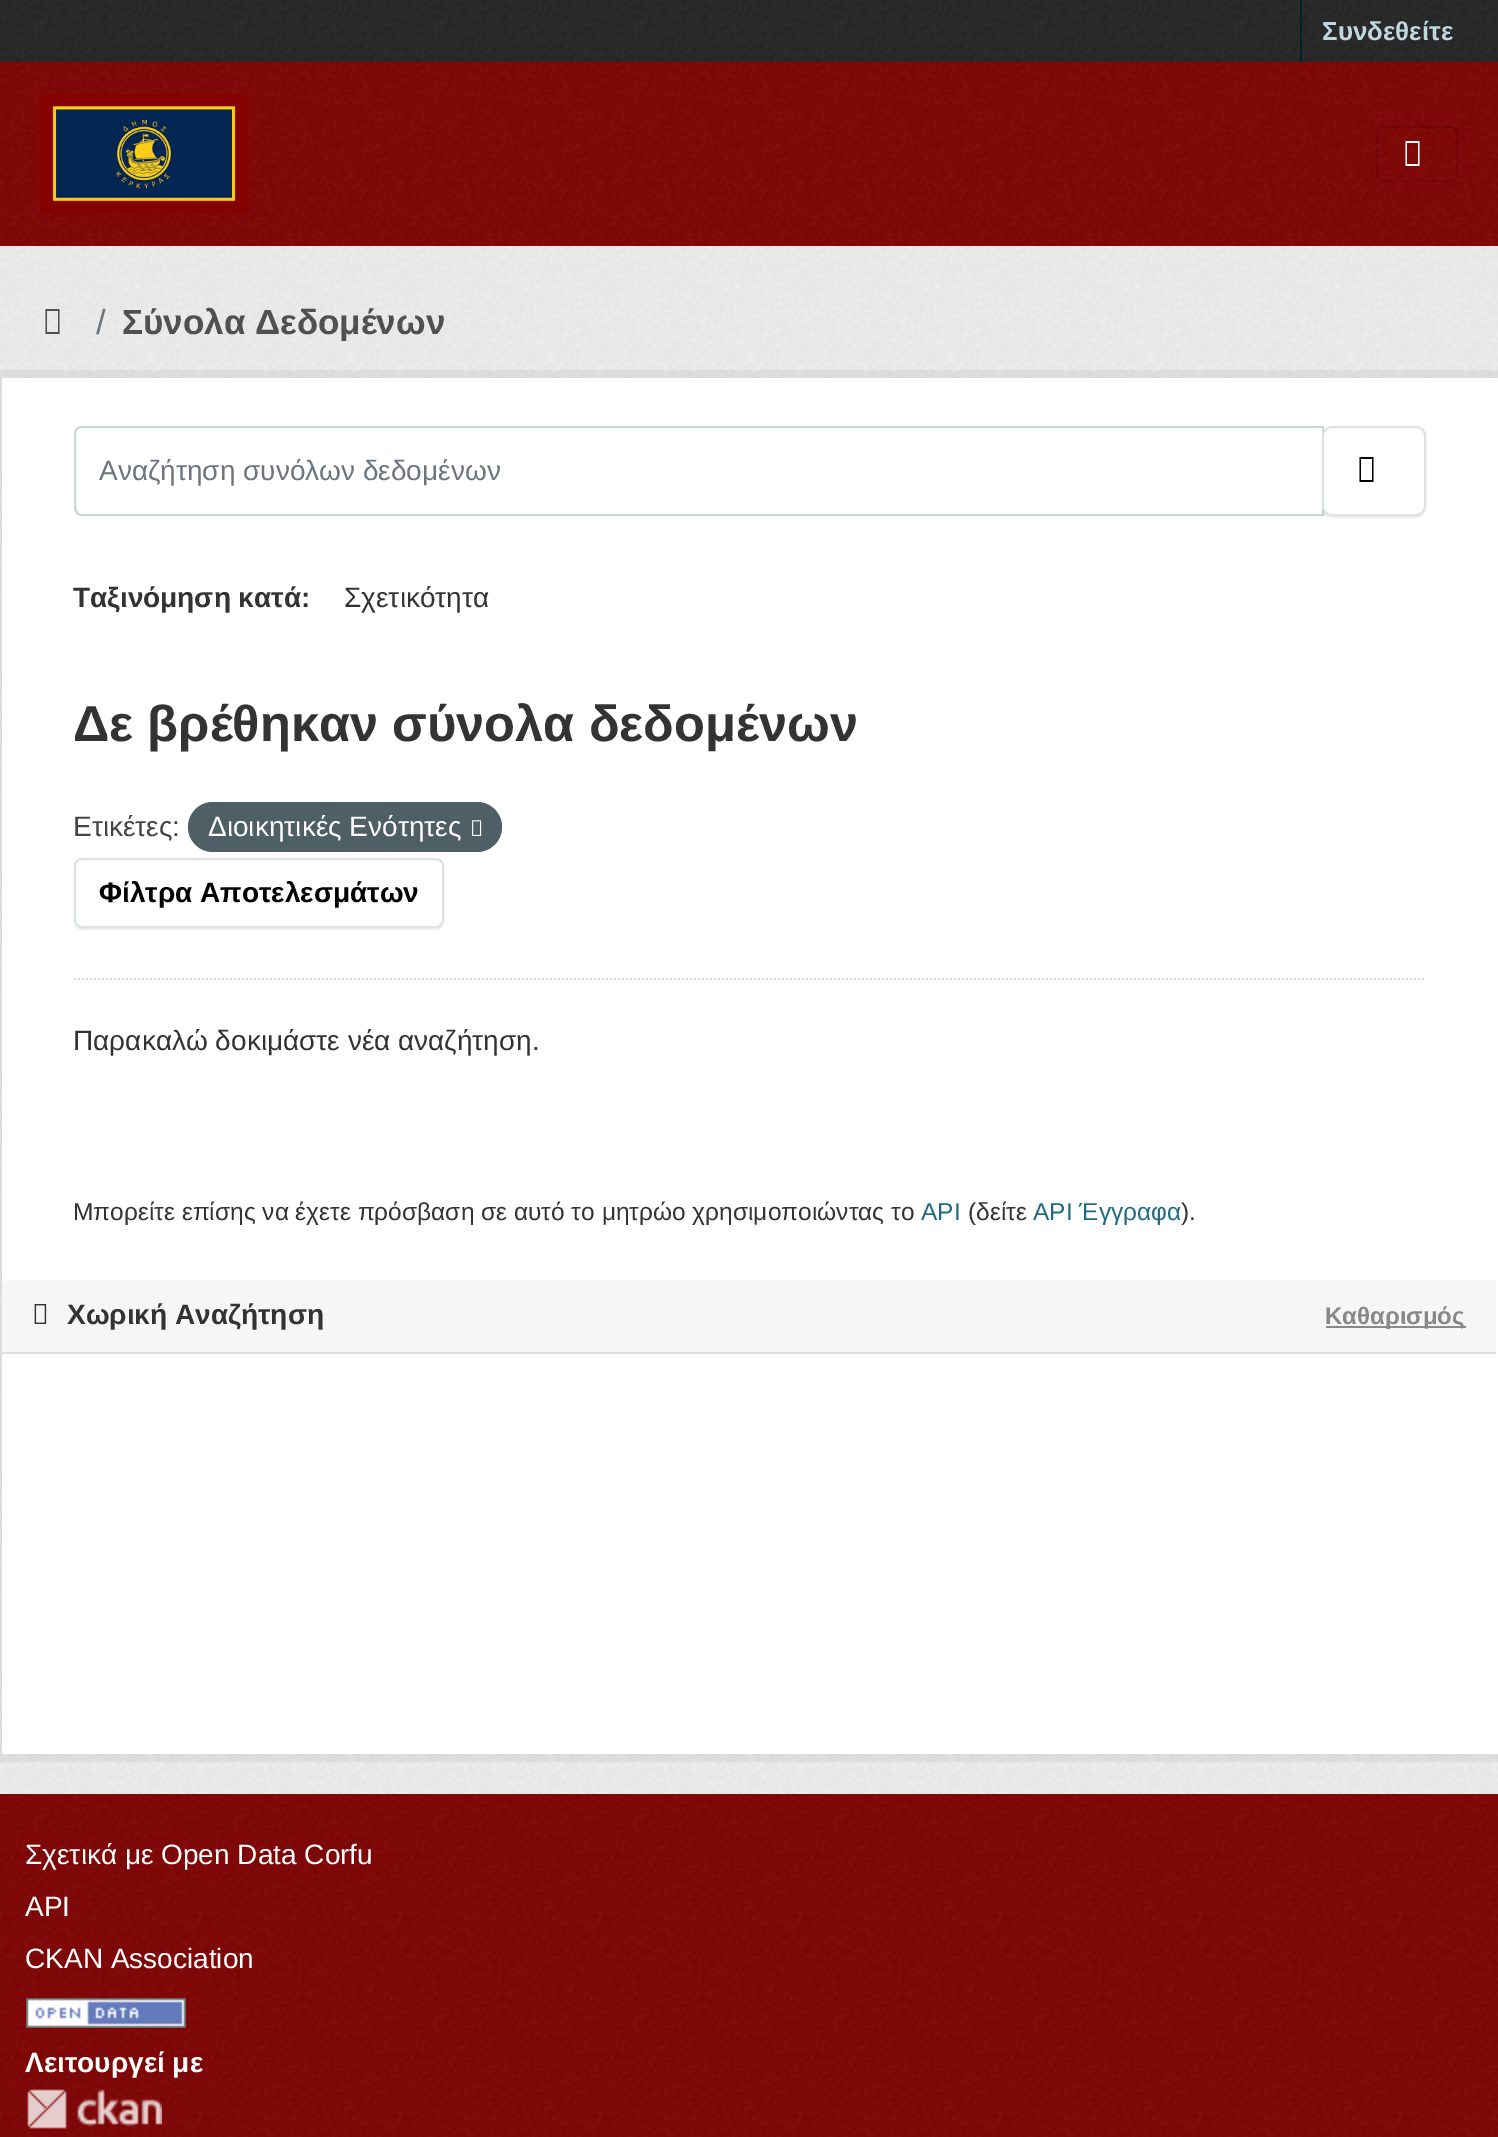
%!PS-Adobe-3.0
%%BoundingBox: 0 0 1498 2137
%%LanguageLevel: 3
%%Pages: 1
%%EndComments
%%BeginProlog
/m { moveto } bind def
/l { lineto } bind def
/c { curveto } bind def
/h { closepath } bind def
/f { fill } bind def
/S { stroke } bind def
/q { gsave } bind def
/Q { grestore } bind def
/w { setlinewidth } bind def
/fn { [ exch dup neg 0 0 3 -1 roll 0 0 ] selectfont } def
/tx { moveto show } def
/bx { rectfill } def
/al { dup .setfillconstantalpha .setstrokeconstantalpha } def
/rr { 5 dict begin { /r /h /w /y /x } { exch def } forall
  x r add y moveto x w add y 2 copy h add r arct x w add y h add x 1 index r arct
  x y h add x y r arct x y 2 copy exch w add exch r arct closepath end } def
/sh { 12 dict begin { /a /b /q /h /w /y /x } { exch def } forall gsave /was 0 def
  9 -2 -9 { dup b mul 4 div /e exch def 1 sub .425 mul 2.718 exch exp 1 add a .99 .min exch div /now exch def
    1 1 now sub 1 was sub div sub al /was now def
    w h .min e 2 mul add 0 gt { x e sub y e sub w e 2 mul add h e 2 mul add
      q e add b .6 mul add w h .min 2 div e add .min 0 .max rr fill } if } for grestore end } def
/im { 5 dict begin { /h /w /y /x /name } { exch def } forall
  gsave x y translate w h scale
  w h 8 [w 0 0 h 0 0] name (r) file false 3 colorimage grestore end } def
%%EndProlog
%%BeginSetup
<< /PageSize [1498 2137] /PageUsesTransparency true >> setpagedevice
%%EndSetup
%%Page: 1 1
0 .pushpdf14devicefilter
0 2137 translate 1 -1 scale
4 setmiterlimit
0.157 setgray
0 0 1498 2137 bx
(image0.raw) 2 0 1493 62 im
0 0.137 0.18 setrgbcolor
1300 0 2 62 bx
/LiberationSans-Bold 26 fn
0.749 0.843 0.871 setrgbcolor
(Συνδεθείτε) 1322 40 tx
0.506 0.024 0.024 setrgbcolor
0 62 1498 184 bx
(image1.raw) 0 62 1498 184 im
(image2.raw) 40 94 208 120 im
0.1 al
0 setgray
2 w
1377 127 80 54 7 rr S
1 al
1 setgray
1405.5 166 m 1405.5 141 l 1419.5 141 l 1419.5 166 l h 1407 164 m 1418 164 l 1418 143 l 1407 143 l h f
0.933 setgray
0 246 1498 1548 bx
(image3.raw) 0 246 1498 1548 im
0.314 setgray
45.5 334 m 45.5 309 l 59.5 309 l 59.5 334 l h 47 332 m 58 332 l 58 311 l 47 311 l h f
/LiberationSans-Regular 35 fn
0.424 0.459 0.49 setrgbcolor
(/) 96 334 tx
/LiberationSans-Bold 35 fn
0.314 setgray
(Σύνολα Δεδομένων) 122 334 tx
0.05 al
0 setgray
8 w
-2 374 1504 1384 rectstroke
1 al
1 setgray
2 378 1496 1376 bx
0.867 setgray
2 w
[2 2] 0 setdash
74 979 m 1426 979 l S
0.808 0.831 0.855 setrgbcolor
[] 0 setdash
82 427 m 1323 427 l 1323 515 l 82 515 l 78 515 75 512 75 508 c 75 434 l 75 430 78 427 82 427 c h S
/LiberationSans-Regular 28 fn
0.424 0.459 0.49 setrgbcolor
(Αναζήτηση συνόλων δεδομένων) 99 480 tx
0 setgray
1322 428 104 90 10 1 0.07 sh
1 setgray
1323 427 102 88 9 rr q f Q
0.871 0.886 0.902 setrgbcolor
S
0 setgray
1359.5 482 m 1359.5 457 l 1373.5 457 l 1373.5 482 l h 1361 480 m 1372 480 l 1372 459 l 1361 459 l h f
/LiberationSans-Bold 28 fn
0.2 setgray
(Ταξινόμηση κατά:) 73 607 tx
/LiberationSans-Regular 28 fn
(Σχετικότητα) 344 607 tx
/LiberationSans-Bold 50.6 fn
(Δε βρέθηκαν σύνολα δεδομένων) 73 741 tx
/LiberationSans-Regular 28 fn
0.267 setgray
(Ετικέτες:) 73 836 tx
0.306 0.373 0.396 setrgbcolor
188 802 314 50 25 rr f
1 setgray
(Διοικητικές Ενότητες) 208 836 tx
(image4.raw) 472 820 10 16 im
0 setgray
74 860 370 70 8 1 0.07 sh
1 setgray
75 859 368 68 7 rr q f Q
0.871 0.886 0.902 setrgbcolor
S
/LiberationSans-Bold 28 fn
0 setgray
(Φίλτρα Αποτελεσμάτων) 99 902 tx
/LiberationSans-Regular 28 fn
0.2 setgray
(Παρακαλώ δοκιμάστε νέα αναζήτηση.) 73 1050 tx
/LiberationSans-Regular 24.5 fn
(Μπορείτε επίσης να έχετε πρόσβαση σε αυτό το μητρώο χρησιμοποιώντας το) 73 1220 tx
0.125 0.42 0.51 setrgbcolor
(API) 921 1220 tx
0.2 setgray
(\(δείτε) 968 1220 tx
0.125 0.42 0.51 setrgbcolor
(API Έγγραφα) 1033 1220 tx
0.2 setgray
(\).) 1181 1220 tx
0.965 setgray
8 1280 m 1496 1280 l 1496 1354 l 2 1354 l 2 1286 l 2 1282.5 4.5 1280 8 1280 c h f
0.867 setgray
2 1352 1494 2 bx
(image5.raw) 34 1304 13 20 im
/LiberationSans-Bold 28 fn
0.2 setgray
(Χωρική Αναζήτηση) 67 1324 tx
0.533 setgray
1326 1326 140 2 bx
/LiberationSans-Bold 24 fn
(Καθαρισμός) 1325 1324 tx
0.506 0.024 0.024 setrgbcolor
0 1794 1498 343 bx
(image6.raw) 0 1794 1498 343 im
/LiberationSans-Regular 28 fn
1 setgray
(Σχετικά με Open Data Corfu) 25 1864 tx
(API) 25 1916 tx
(CKAN Association) 25 1968 tx
(image7.raw) 26 1998 160 30 im
/LiberationSans-Bold 28 fn
(Λειτουργεί με) 25 2072 tx
(image8.raw) 27 2089 135 40 im
.poppdf14devicefilter showpage
%%EOF
